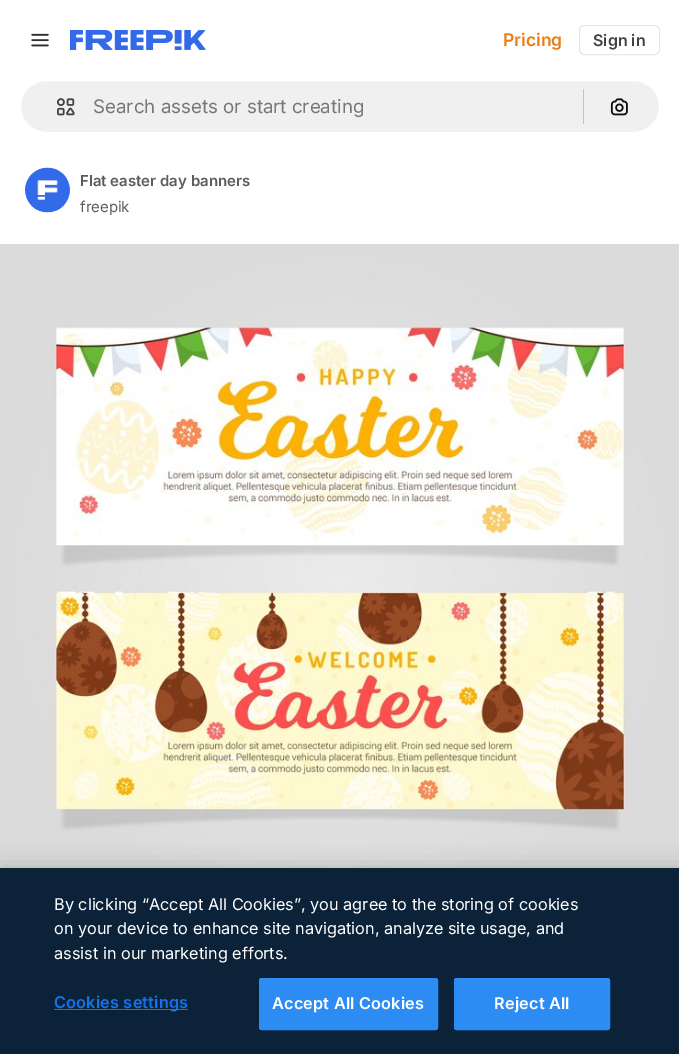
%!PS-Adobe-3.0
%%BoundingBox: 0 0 679 1054
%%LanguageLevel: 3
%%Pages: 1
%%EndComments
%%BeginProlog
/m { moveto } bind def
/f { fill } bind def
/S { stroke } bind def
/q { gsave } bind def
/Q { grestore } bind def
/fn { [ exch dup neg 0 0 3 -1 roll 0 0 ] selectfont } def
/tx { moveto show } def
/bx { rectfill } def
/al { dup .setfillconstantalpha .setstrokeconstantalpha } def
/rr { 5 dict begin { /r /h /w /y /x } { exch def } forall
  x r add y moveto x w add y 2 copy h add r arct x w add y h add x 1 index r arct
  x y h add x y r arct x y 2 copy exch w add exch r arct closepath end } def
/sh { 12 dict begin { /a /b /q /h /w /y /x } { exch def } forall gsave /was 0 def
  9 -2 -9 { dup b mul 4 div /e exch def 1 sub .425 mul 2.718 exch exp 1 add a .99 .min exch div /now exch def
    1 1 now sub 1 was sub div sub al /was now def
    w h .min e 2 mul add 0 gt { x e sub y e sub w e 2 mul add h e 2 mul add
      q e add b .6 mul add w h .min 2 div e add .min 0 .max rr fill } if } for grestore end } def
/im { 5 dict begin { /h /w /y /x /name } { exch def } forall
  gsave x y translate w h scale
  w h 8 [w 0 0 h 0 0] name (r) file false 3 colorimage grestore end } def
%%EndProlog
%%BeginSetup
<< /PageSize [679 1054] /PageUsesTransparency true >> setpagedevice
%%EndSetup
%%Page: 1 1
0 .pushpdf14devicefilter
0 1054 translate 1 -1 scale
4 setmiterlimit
1 setgray
0 0 679 1054 bx
(image0.raw) 31 33 18 14 im
(image1.raw) 70 30 136 20 im
/Inter-SemiBold 17.5 fn
0.918 0.494 0.067 setrgbcolor
(Pricing) 503 46 tx
0.906 setgray
579.5 25.5 80 29 4.5 rr S
/Inter-SemiBold 16 fn
0.259 setgray
(Sign in) 593 46 tx
0.941 setgray
20.5 80.5 639 52 26 rr q f Q
1 setgray
S
(image2.raw) 56 98 19 18 im
/Inter-Regular 18.75 fn
0.467 setgray
(Search assets or start creating) 93 113 tx
0.765 setgray
583 89 1 35 bx
(image3.raw) 610 98 18 18 im
(image4.raw) 25 167 45 46 im
/Inter-SemiBold 15 fn
0.361 setgray
(Flat easter day banners) 80 186 tx
/Inter-Regular 15 fn
(freepik) 80 212 tx
(image5.raw) 0 244 679 624 im
0 setgray
0 868 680 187 0 11 0.2 sh
0.043 0.133 0.224 setrgbcolor
0 868 679 186 bx
/Inter-Regular 16.25 fn
1 setgray
(By clicking “Accept All Cookies”, you agree to the storing of cookies) 54 910 tx
(on your device to enhance site navigation, analyze site usage, and) 54 934 tx
(assist in our marketing efforts.) 54 959 tx
0.071 0.451 0.922 setrgbcolor
54 1009 134 1 bx
/Inter-SemiBold 16.25 fn
54 1008 m 0.2 0 (Cookies settings) ashow
0.173 0.549 0.957 setrgbcolor
259.5 978.5 178 51 2 rr q f Q
S
1 setgray
272 1009 m 0.2 0 (Accept All Cookies) ashow
0.173 0.549 0.957 setrgbcolor
454.5 978.5 155 51 2 rr q f Q
S
1 setgray
494 1009 m 0.2 0 (Reject All) ashow
.poppdf14devicefilter showpage
%%EOF
